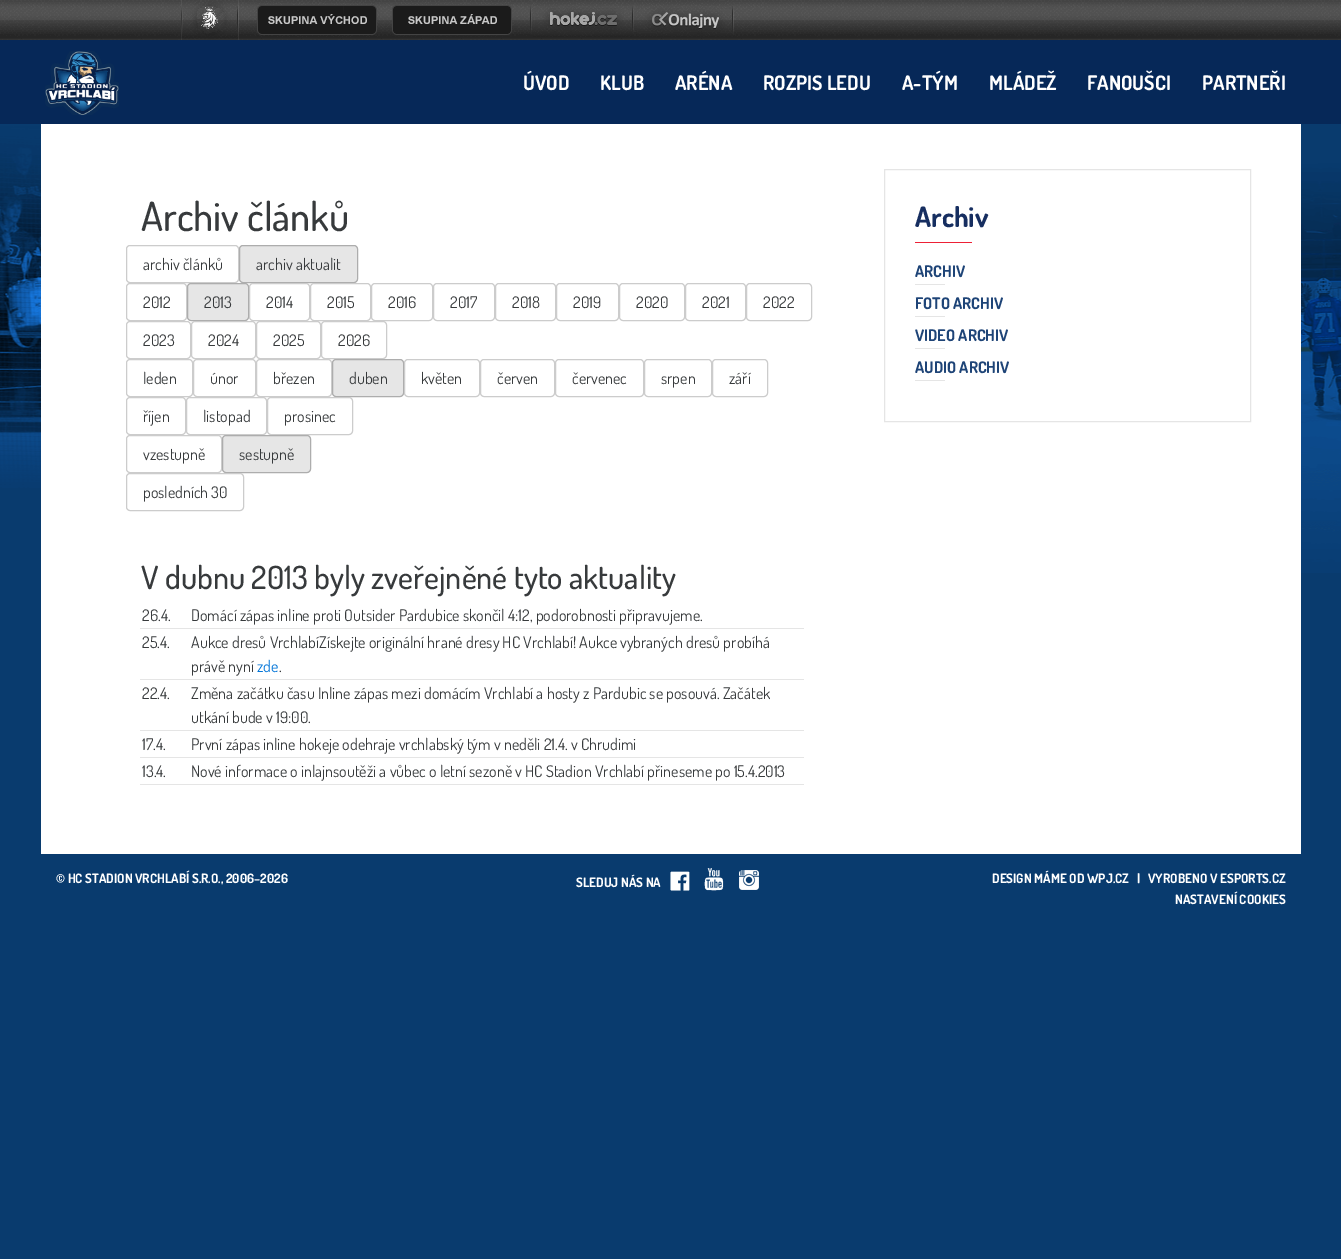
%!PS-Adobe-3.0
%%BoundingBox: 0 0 1341 1259
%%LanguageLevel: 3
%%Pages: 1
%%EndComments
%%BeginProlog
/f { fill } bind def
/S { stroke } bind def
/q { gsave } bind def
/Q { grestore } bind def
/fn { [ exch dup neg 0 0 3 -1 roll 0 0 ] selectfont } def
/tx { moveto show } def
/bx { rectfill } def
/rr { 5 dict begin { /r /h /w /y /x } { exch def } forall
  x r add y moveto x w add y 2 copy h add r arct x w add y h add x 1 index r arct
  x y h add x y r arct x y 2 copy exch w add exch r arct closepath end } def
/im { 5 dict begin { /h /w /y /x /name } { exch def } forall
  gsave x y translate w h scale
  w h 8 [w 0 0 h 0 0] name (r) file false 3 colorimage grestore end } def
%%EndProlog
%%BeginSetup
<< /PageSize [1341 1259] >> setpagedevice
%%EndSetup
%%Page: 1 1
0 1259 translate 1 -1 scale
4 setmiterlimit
0.035 0.231 0.431 setrgbcolor
0 0 1341 1259 bx
(image0.raw) 0 124 1341 449 im
(image1.raw) 0 0 1341 40 im
(image2.raw) 181 0 58 40 im
(image3.raw) 257 0 120 37 im
(image4.raw) 392 0 120 37 im
(image5.raw) 530 0 104 37 im
(image6.raw) 637 0 97 37 im
0.024 0.157 0.345 setrgbcolor
0 40 1341 84 bx
(image7.raw) 45 51 74 64 im
/Dosis-Bold 20 fn
1 setgray
(ÚVOD) 523 90 tx
(KLUB) 600 90 tx
(ARÉNA) 675 90 tx
(ROZPIS LEDU) 763 90 tx
(A-TÝM) 902 90 tx
(MLÁDEŽ) 989 90 tx
(FANOUŠCI) 1087 90 tx
(PARTNEŘI) 1202 90 tx
41 124 1260 730 bx
/Dosis-Medium 40 fn
0.216 0.227 0.235 setrgbcolor
(Archiv článků) 141 231 tx
0.8 setgray
126.5 245.5 112 37 3.5 rr S
/Dosis-Regular 16 fn
0.216 0.227 0.235 setrgbcolor
(archiv článků) 143 270 tx
0.902 setgray
239.5 245.5 118 37 3.5 rr q f Q
0.678 setgray
S
0.216 0.227 0.235 setrgbcolor
(archiv aktualit) 256 270 tx
0.8 setgray
126.5 283.5 60 37 3.5 rr S
0.216 0.227 0.235 setrgbcolor
(2012) 143 308 tx
0.902 setgray
187.5 283.5 61 37 3.5 rr q f Q
0.678 setgray
S
0.216 0.227 0.235 setrgbcolor
(2013) 204 308 tx
0.8 setgray
249.5 283.5 60 37 3.5 rr S
0.216 0.227 0.235 setrgbcolor
(2014) 266 308 tx
0.8 setgray
310.5 283.5 60 37 3.5 rr S
0.216 0.227 0.235 setrgbcolor
(2015) 327 308 tx
0.8 setgray
371.5 283.5 61 37 3.5 rr S
0.216 0.227 0.235 setrgbcolor
(2016) 388 308 tx
0.8 setgray
433.5 283.5 61 37 3.5 rr S
0.216 0.227 0.235 setrgbcolor
(2017) 450 308 tx
0.8 setgray
495.5 283.5 60 37 3.5 rr S
0.216 0.227 0.235 setrgbcolor
(2018) 512 308 tx
0.8 setgray
556.5 283.5 62 37 3.5 rr S
0.216 0.227 0.235 setrgbcolor
(2019) 573 308 tx
0.8 setgray
619.5 283.5 65 37 3.5 rr S
0.216 0.227 0.235 setrgbcolor
(2020) 636 308 tx
0.8 setgray
685.5 283.5 60 37 3.5 rr S
0.216 0.227 0.235 setrgbcolor
(2021) 702 308 tx
0.8 setgray
746.5 283.5 65 37 3.5 rr S
0.216 0.227 0.235 setrgbcolor
(2022) 763 308 tx
0.8 setgray
126.5 321.5 64 37 3.5 rr S
0.216 0.227 0.235 setrgbcolor
(2023) 143 346 tx
0.8 setgray
191.5 321.5 64 37 3.5 rr S
0.216 0.227 0.235 setrgbcolor
(2024) 208 346 tx
0.8 setgray
256.5 321.5 64 37 3.5 rr S
0.216 0.227 0.235 setrgbcolor
(2025) 273 346 tx
0.8 setgray
321.5 321.5 65 37 3.5 rr S
0.216 0.227 0.235 setrgbcolor
(2026) 338 346 tx
0.8 setgray
126.5 359.5 66 37 3.5 rr S
0.216 0.227 0.235 setrgbcolor
(leden) 143 384 tx
0.8 setgray
193.5 359.5 62 37 3.5 rr S
0.216 0.227 0.235 setrgbcolor
(únor) 210 384 tx
0.8 setgray
256.5 359.5 75 37 3.5 rr S
0.216 0.227 0.235 setrgbcolor
(březen) 273 384 tx
0.902 setgray
332.5 359.5 71 37 3.5 rr q f Q
0.678 setgray
S
0.216 0.227 0.235 setrgbcolor
(duben) 349 384 tx
0.8 setgray
404.5 359.5 75 37 3.5 rr S
0.216 0.227 0.235 setrgbcolor
(květen) 421 384 tx
0.8 setgray
480.5 359.5 74 37 3.5 rr S
0.216 0.227 0.235 setrgbcolor
(červen) 497 384 tx
0.8 setgray
555.5 359.5 88 37 3.5 rr S
0.216 0.227 0.235 setrgbcolor
(červenec) 572 384 tx
0.8 setgray
644.5 359.5 67 37 3.5 rr S
0.216 0.227 0.235 setrgbcolor
(srpen) 661 384 tx
0.8 setgray
712.5 359.5 55 37 3.5 rr S
0.216 0.227 0.235 setrgbcolor
(září) 729 384 tx
0.8 setgray
126.5 397.5 59 37 3.5 rr S
0.216 0.227 0.235 setrgbcolor
(říjen) 143 422 tx
0.8 setgray
186.5 397.5 80 37 3.5 rr S
0.216 0.227 0.235 setrgbcolor
(listopad) 203 422 tx
0.8 setgray
267.5 397.5 85 37 3.5 rr S
0.216 0.227 0.235 setrgbcolor
(prosinec) 284 422 tx
0.8 setgray
126.5 435.5 95 37 3.5 rr S
0.216 0.227 0.235 setrgbcolor
(vzestupně) 143 460 tx
0.902 setgray
222.5 435.5 88 37 3.5 rr q f Q
0.678 setgray
S
0.216 0.227 0.235 setrgbcolor
(sestupně) 239 460 tx
0.8 setgray
126.5 473.5 117 37 3.5 rr S
0.216 0.227 0.235 setrgbcolor
(posledních 30) 143 498 tx
/Dosis-Medium 32 fn
(V dubnu 2013 byly zveřejněné tyto aktuality) 141 589 tx
0.898 setgray
140 628 664 1 bx
/Dosis-Regular 16 fn
0.216 0.227 0.235 setrgbcolor
(26.4.) 142 621 tx
(Domácí zápas inline proti Outsider Pardubice skončil 4:12, podorobnosti připravujeme.) 191 621 tx
0.898 setgray
140 679 664 1 bx
0.216 0.227 0.235 setrgbcolor
(25.4.) 142 648 tx
(Aukce dresů VrchlabíZískejte originální hrané dresy HC Vrchlabí! Aukce vybraných dresů probíhá) 191 648 tx
(právě nyní) 191 672 tx
0.008 0.459 0.847 setrgbcolor
(zde) 257 672 tx
0.216 0.227 0.235 setrgbcolor
(.) 279 672 tx
0.898 setgray
140 730 664 1 bx
0.216 0.227 0.235 setrgbcolor
(22.4.) 142 699 tx
(Změna začátku času Inline zápas mezi domácím Vrchlabí a hosty z Pardubic se posouvá. Začátek) 191 699 tx
(utkání bude v 19:00.) 191 723 tx
0.898 setgray
140 757 664 1 bx
0.216 0.227 0.235 setrgbcolor
(17.4.) 142 750 tx
(První zápas inline hokeje odehraje vrchlabský tým v neděli 21.4. v Chrudimi) 191 750 tx
0.898 setgray
140 784 664 1 bx
0.216 0.227 0.235 setrgbcolor
(13.4.) 142 777 tx
(Nové informace o inlajnsoutěži a vůbec o letní sezoně v HC Stadion Vrchlabí přineseme po 15.4.2013) 191 777 tx
0.898 setgray
884.5 169.5 366 252 rectstroke
/Dosis-Bold 28 fn
0.086 0.18 0.376 setrgbcolor
(Archiv) 915 227 tx
0.929 0.129 0.212 setrgbcolor
915 242 57 1 bx
/Dosis-Bold 16 fn
0.118 0.267 0.467 setrgbcolor
(ARCHIV) 915 277 tx
0.898 setgray
915 284 30 1 bx
0.118 0.267 0.467 setrgbcolor
(FOTO ARCHIV) 915 309 tx
0.898 setgray
915 316 30 1 bx
0.118 0.267 0.467 setrgbcolor
(VIDEO ARCHIV) 915 341 tx
0.898 setgray
915 348 30 1 bx
0.118 0.267 0.467 setrgbcolor
(AUDIO ARCHIV) 915 373 tx
0.898 setgray
915 380 30 1 bx
/Dosis-Bold 13 fn
1 setgray
(© HC STADION VRCHLABÍ S.R.O., 2006–2026) 56 883 tx
(SLEDUJ NÁS NA) 576 887 tx
(image8.raw) 670 871 20 20 im
(image9.raw) 704 868 20 23 im
(image10.raw) 739 870 20 20 im
(DESIGN MÁME OD WPJ.CZ) 992 883 tx
(|   VYROBENO V ESPORTS.CZ) 1137 883 tx
(NASTAVENÍ COOKIES) 1175 904 tx
showpage
%%EOF
